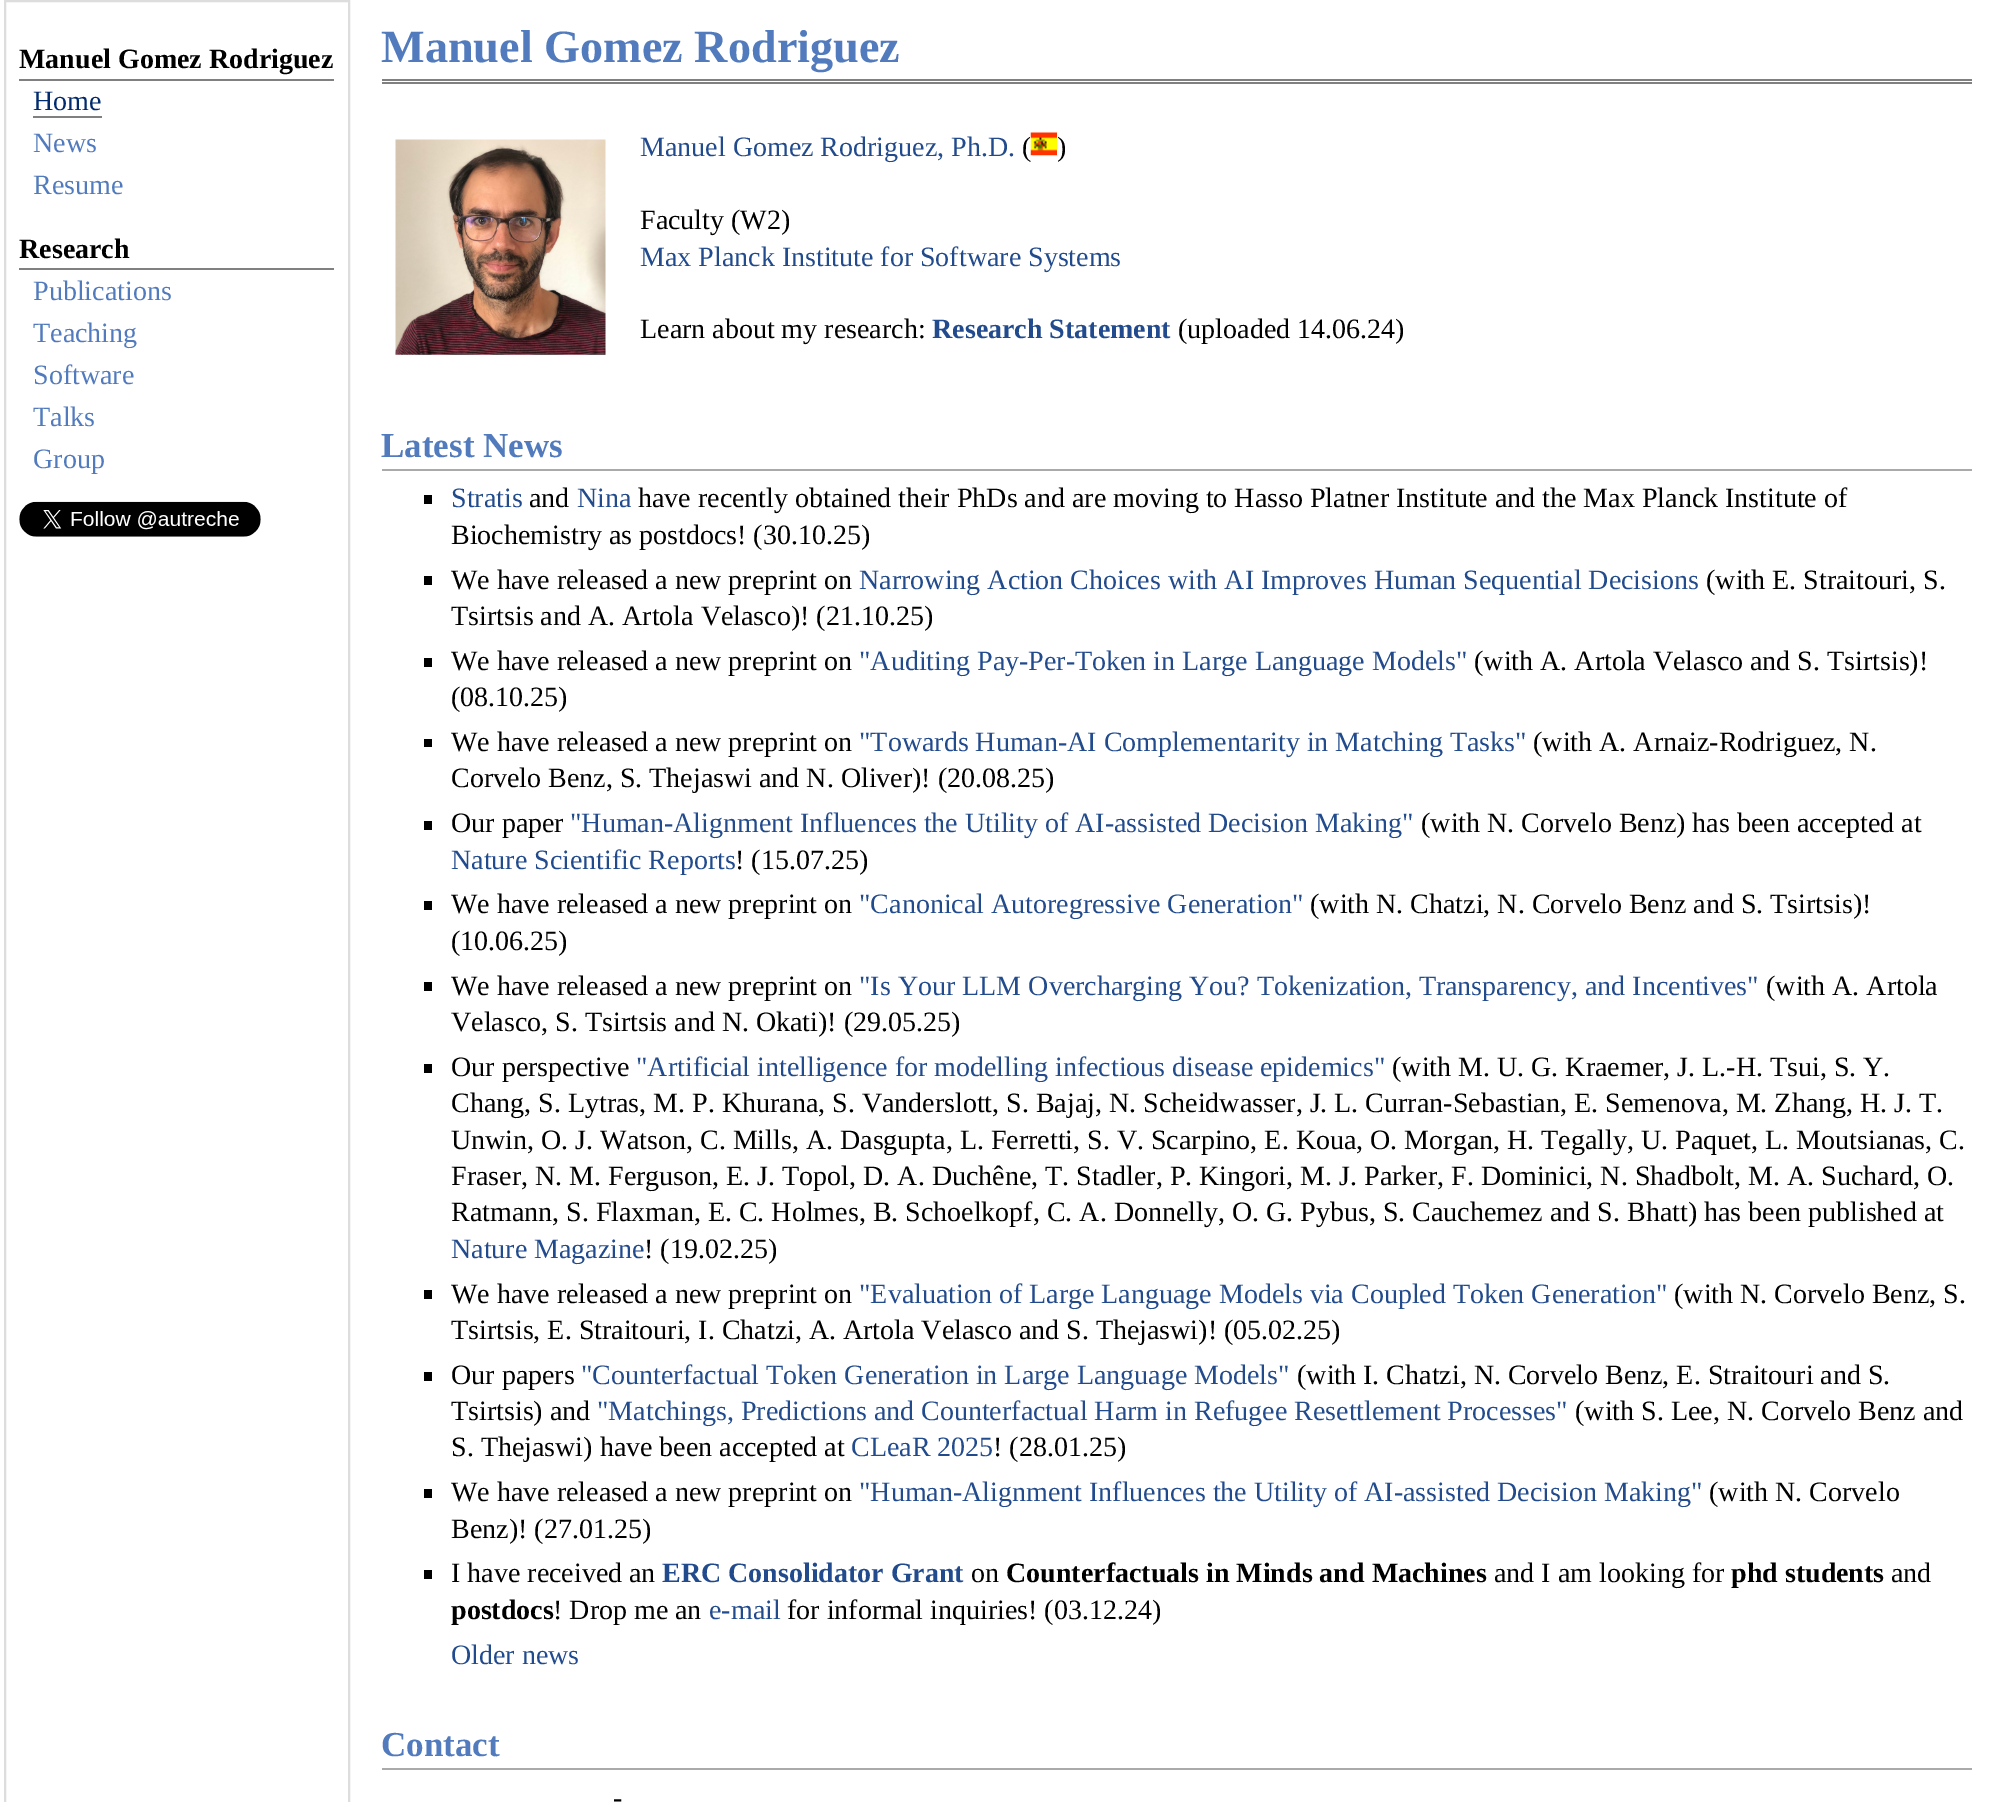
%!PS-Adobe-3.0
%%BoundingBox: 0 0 2003 1802
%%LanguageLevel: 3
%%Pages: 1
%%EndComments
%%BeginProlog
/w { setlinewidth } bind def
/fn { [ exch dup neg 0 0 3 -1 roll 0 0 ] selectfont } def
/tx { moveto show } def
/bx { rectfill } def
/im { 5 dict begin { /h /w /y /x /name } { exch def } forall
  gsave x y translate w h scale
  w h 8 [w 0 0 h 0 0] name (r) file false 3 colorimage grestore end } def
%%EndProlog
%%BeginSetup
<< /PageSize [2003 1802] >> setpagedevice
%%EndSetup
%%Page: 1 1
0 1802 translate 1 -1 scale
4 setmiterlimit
1 setgray
0 0 2003 1802 bx
0.867 setgray
2 w
5 1 344 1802 rectstroke
0.502 setgray
19 79 315 2 bx
/LiberationSerif-Bold 28 fn
0 setgray
(Manuel Gomez Rodriguez) 19 68 tx
/LiberationSerif-Regular 28 fn
0.008 0.169 0.427 setrgbcolor
(Home) 33 110 tx
0.502 setgray
33 116 69 2 bx
0.322 0.482 0.741 setrgbcolor
(News) 33 152 tx
(Resume) 33 194 tx
0.502 setgray
19 268 315 2 bx
/LiberationSerif-Bold 28 fn
0 setgray
(Research) 19 258 tx
/LiberationSerif-Regular 28 fn
0.322 0.482 0.741 setrgbcolor
(Publications) 33 300 tx
(Teaching) 33 342 tx
(Software) 33 384 tx
(Talks) 33 426 tx
(Group) 33 468 tx
(image0.raw) 19 501 242 36 im
0.502 setgray
382 79 1590 2 bx
382 82 1590 2 bx
/LiberationSerif-Bold 46.25 fn
0.322 0.482 0.741 setrgbcolor
(Manuel Gomez Rodriguez) 381 62 tx
(image1.raw) 395 139 211 216 im
/LiberationSerif-Regular 28 fn
0.133 0.294 0.553 setrgbcolor
(Manuel Gomez Rodriguez, Ph.D.) 640 156 tx
0 setgray
(\() 1022 156 tx
(image2.raw) 1030 132 27 24 im
(\)) 1057 156 tx
(Faculty \(W2\)) 640 229 tx
0.133 0.294 0.553 setrgbcolor
(Max Planck Institute for Software Systems) 640 266 tx
0 setgray
(Learn about my research:) 640 338 tx
/LiberationSerif-Bold 28 fn
0.133 0.294 0.553 setrgbcolor
(Research Statement) 932 338 tx
/LiberationSerif-Regular 28 fn
0 setgray
(\(uploaded 14.06.24\)) 1178 338 tx
0.667 setgray
382 469 1590 2 bx
/LiberationSerif-Bold 35 fn
0.322 0.482 0.741 setrgbcolor
(Latest News) 381 457 tx
0 setgray
424 495 8 9 bx
/LiberationSerif-Regular 28 fn
0.133 0.294 0.553 setrgbcolor
(Stratis) 451 507 tx
0 setgray
(and) 529 507 tx
0.133 0.294 0.553 setrgbcolor
(Nina) 577 507 tx
0 setgray
(have recently obtained their PhDs and are moving to Hasso Platner Institute and the Max Planck Institute of) 638 507 tx
(Biochemistry as postdocs! \(30.10.25\)) 451 544 tx
424 576 8 9 bx
(We have released a new preprint on) 451 589 tx
0.133 0.294 0.553 setrgbcolor
(Narrowing Action Choices with AI Improves Human Sequential Decisions) 859 589 tx
0 setgray
(\(with E. Straitouri, S.) 1706 589 tx
(Tsirtsis and A. Artola Velasco\)! \(21.10.25\)) 451 625 tx
424 658 8 9 bx
(We have released a new preprint on) 451 670 tx
0.133 0.294 0.553 setrgbcolor
("Auditing Pay-Per-Token in Large Language Models") 859 670 tx
0 setgray
(\(with A. Artola Velasco and S. Tsirtsis\)!) 1474 670 tx
(\(08.10.25\)) 451 706 tx
424 739 8 8 bx
(We have released a new preprint on) 451 751 tx
0.133 0.294 0.553 setrgbcolor
("Towards Human-AI Complementarity in Matching Tasks") 859 751 tx
0 setgray
(\(with A. Arnaiz-Rodriguez, N.) 1533 751 tx
(Corvelo Benz, S. Thejaswi and N. Oliver\)! \(20.08.25\)) 451 787 tx
424 821 8 9 bx
(Our paper) 451 832 tx
0.133 0.294 0.553 setrgbcolor
("Human-Alignment Influences the Utility of AI-assisted Decision Making") 570 832 tx
0 setgray
(\(with N. Corvelo Benz\) has been accepted at) 1421 832 tx
0.133 0.294 0.553 setrgbcolor
(Nature Scientific Reports) 451 869 tx
0 setgray
(! \(15.07.25\)) 735 869 tx
424 901 8 9 bx
(We have released a new preprint on) 451 913 tx
0.133 0.294 0.553 setrgbcolor
("Canonical Autoregressive Generation") 859 913 tx
0 setgray
(\(with N. Chatzi, N. Corvelo Benz and S. Tsirtsis\)!) 1310 913 tx
(\(10.06.25\)) 451 950 tx
424 982 8 9 bx
(We have released a new preprint on) 451 995 tx
0.133 0.294 0.553 setrgbcolor
("Is Your LLM Overcharging You? Tokenization, Transparency, and Incentives") 859 995 tx
0 setgray
(\(with A. Artola) 1766 995 tx
(Velasco, S. Tsirtsis and N. Okati\)! \(29.05.25\)) 451 1031 tx
424 1064 8 9 bx
(Our perspective) 451 1076 tx
0.133 0.294 0.553 setrgbcolor
("Artificial intelligence for modelling infectious disease epidemics") 636 1076 tx
0 setgray
(\(with M. U. G. Kraemer, J. L.-H. Tsui, S. Y.) 1392 1076 tx
(Chang, S. Lytras, M. P. Khurana, S. Vanderslott, S. Bajaj, N. Scheidwasser, J. L. Curran-Sebastian, E. Semenova, M. Zhang, H. J. T.) 451 1112 tx
(Unwin, O. J. Watson, C. Mills, A. Dasgupta, L. Ferretti, S. V. Scarpino, E. Koua, O. Morgan, H. Tegally, U. Paquet, L. Moutsianas, C.) 451 1149 tx
(Fraser, N. M. Ferguson, E. J. Topol, D. A. Duchêne, T. Stadler, P. Kingori, M. J. Parker, F. Dominici, N. Shadbolt, M. A. Suchard, O.) 451 1185 tx
(Ratmann, S. Flaxman, E. C. Holmes, B. Schoelkopf, C. A. Donnelly, O. G. Pybus, S. Cauchemez and S. Bhatt\) has been published at) 451 1221 tx
0.133 0.294 0.553 setrgbcolor
(Nature Magazine) 451 1258 tx
0 setgray
(! \(19.02.25\)) 644 1258 tx
424 1290 8 9 bx
(We have released a new preprint on) 451 1303 tx
0.133 0.294 0.553 setrgbcolor
("Evaluation of Large Language Models via Coupled Token Generation") 859 1303 tx
0 setgray
(\(with N. Corvelo Benz, S.) 1674 1303 tx
(Tsirtsis, E. Straitouri, I. Chatzi, A. Artola Velasco and S. Thejaswi\)! \(05.02.25\)) 451 1339 tx
424 1372 8 9 bx
(Our papers) 451 1384 tx
0.133 0.294 0.553 setrgbcolor
("Counterfactual Token Generation in Large Language Models") 581 1384 tx
0 setgray
(\(with I. Chatzi, N. Corvelo Benz, E. Straitouri and S.) 1297 1384 tx
(Tsirtsis\) and) 451 1420 tx
0.133 0.294 0.553 setrgbcolor
("Matchings, Predictions and Counterfactual Harm in Refugee Resettlement Processes") 597 1420 tx
0 setgray
(\(with S. Lee, N. Corvelo Benz and) 1575 1420 tx
(S. Thejaswi\) have been accepted at) 451 1456 tx
0.133 0.294 0.553 setrgbcolor
(CLeaR 2025) 851 1456 tx
0 setgray
(! \(28.01.25\)) 993 1456 tx
424 1489 8 9 bx
(We have released a new preprint on) 451 1501 tx
0.133 0.294 0.553 setrgbcolor
("Human-Alignment Influences the Utility of AI-assisted Decision Making") 859 1501 tx
0 setgray
(\(with N. Corvelo) 1709 1501 tx
(Benz\)! \(27.01.25\)) 451 1538 tx
424 1570 8 9 bx
(I have received an) 451 1582 tx
/LiberationSerif-Bold 28 fn
0.133 0.294 0.553 setrgbcolor
(ERC Consolidator Grant) 662 1582 tx
/LiberationSerif-Regular 28 fn
0 setgray
(on) 971 1582 tx
/LiberationSerif-Bold 28 fn
(Counterfactuals in Minds and Machines) 1006 1582 tx
/LiberationSerif-Regular 28 fn
(and I am looking for) 1494 1582 tx
/LiberationSerif-Bold 28 fn
(phd students) 1731 1582 tx
/LiberationSerif-Regular 28 fn
(and) 1891 1582 tx
/LiberationSerif-Bold 28 fn
(postdocs) 451 1619 tx
/LiberationSerif-Regular 28 fn
(! Drop me an) 553 1619 tx
0.133 0.294 0.553 setrgbcolor
(e-mail) 709 1619 tx
0 setgray
(for informal inquiries! \(03.12.24\)) 787 1619 tx
0.133 0.294 0.553 setrgbcolor
(Older news) 451 1664 tx
0.667 setgray
382 1768 1590 2 bx
/LiberationSerif-Bold 35 fn
0.322 0.482 0.741 setrgbcolor
(Contact) 381 1756 tx
/LiberationSerif-Regular 28 fn
0 setgray
(-) 613 1807 tx
showpage
%%EOF
